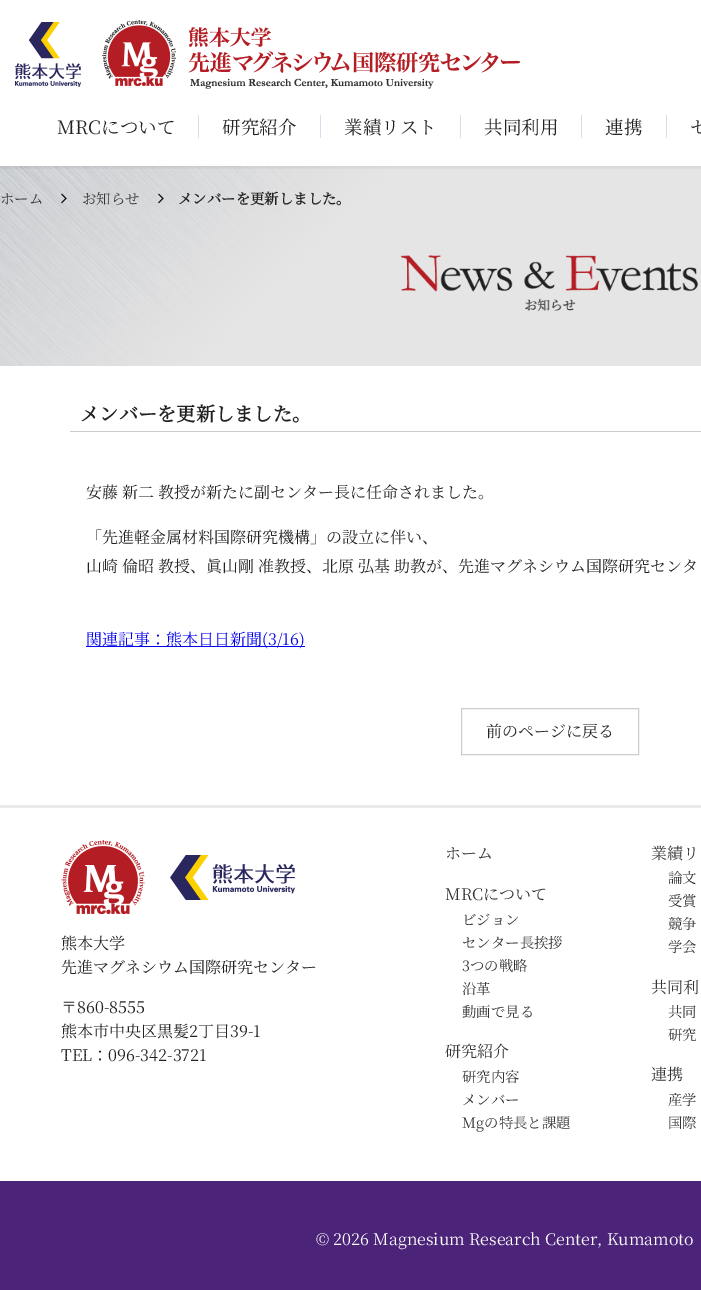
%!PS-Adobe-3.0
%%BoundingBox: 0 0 701 1290
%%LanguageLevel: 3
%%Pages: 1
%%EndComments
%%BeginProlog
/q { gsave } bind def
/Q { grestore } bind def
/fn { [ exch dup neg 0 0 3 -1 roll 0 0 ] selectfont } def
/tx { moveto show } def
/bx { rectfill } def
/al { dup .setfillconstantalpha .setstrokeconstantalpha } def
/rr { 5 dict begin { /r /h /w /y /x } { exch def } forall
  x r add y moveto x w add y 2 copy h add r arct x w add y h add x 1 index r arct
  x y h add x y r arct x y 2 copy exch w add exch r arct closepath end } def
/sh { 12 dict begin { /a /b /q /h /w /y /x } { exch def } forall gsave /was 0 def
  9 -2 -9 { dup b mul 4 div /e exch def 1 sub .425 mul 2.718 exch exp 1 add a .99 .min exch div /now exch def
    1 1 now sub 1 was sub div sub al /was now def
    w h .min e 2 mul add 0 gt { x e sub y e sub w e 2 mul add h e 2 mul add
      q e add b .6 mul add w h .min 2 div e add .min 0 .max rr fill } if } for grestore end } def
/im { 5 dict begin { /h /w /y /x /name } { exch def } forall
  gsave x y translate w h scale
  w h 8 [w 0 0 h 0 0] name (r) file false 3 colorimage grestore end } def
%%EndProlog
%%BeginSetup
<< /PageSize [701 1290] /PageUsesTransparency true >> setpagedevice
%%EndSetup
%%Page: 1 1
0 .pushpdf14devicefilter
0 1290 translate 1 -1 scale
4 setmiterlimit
1 setgray
0 0 701 1290 bx
(image3.raw) 0 166 701 200 im
q
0 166 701 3 rectclip
0.039 setgray
0 1 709 166 0 2.5 0.1 sh
Q
(image0.raw) 15 22 66 65 im
(image1.raw) 102 20 74 66 im
(image2.raw) 188 27 332 62 im
/NotoSerifJP-ExtraLight 18.5 fn
0.133 setgray
(MRCについて) 57 134 tx
0.871 0.859 0.925 setrgbcolor
198 115 1 23 bx
0.133 setgray
(研究紹介) 222 134 tx
0.871 0.859 0.925 setrgbcolor
320 115 1 23 bx
0.133 setgray
(業績リスト) 344 134 tx
0.871 0.859 0.925 setrgbcolor
460 115 1 23 bx
0.133 setgray
(共同利用) 484 134 tx
0.871 0.859 0.925 setrgbcolor
581 115 1 23 bx
0.133 setgray
(連携) 605 134 tx
0.871 0.859 0.925 setrgbcolor
666 115 1 23 bx
0.133 setgray
(セ) 690 134 tx
/NotoSerifJP-ExtraLight 14.4 fn
0.2 setgray
(ホーム) 0 204 tx
(image4.raw) 61 193 6 11 im
(お知らせ) 82 204 tx
(image5.raw) 158 193 6 11 im
/NotoSerifJP-Bold 14.4 fn
0.133 setgray
(メンバーを更新しました。) 178 204 tx
(image6.raw) 400 255 298 57 im
0.8 setgray
70 431 631 1 bx
/NotoSerifJP-Bold 19.25 fn
0.133 setgray
(メンバーを更新しました。) 80 421 tx
/NotoSerifJP-ExtraLight 16 fn
(安藤 新二 教授が新たに副センター長に任命されました。) 86 498 tx
(「先進軽金属材料国際研究機構」の設立に伴い、) 86 543 tx
(山崎 倫昭 教授、眞山剛 准教授、北原 弘基 助教が、先進マグネシウム国際研究センタ) 86 572 tx
0 0 0.933 setrgbcolor
86 646 219 1 bx
(関連記事：熊本日日新聞\(3/16\)) 86 645 tx
0.8 setgray
461.5 708.5 177 46 rectstroke
0.133 setgray
(前のページに戻る) 486 737 tx
0.918 setgray
0 805 701 3 bx
(image7.raw) 61 840 84 74 im
(image8.raw) 170 855 125 45 im
0.133 setgray
(熊本大学) 61 949 tx
(先進マグネシウム国際研究センター) 61 973 tx
(〒860-8555) 61 1013 tx
(熊本市中央区黒髪2丁目39-1) 61 1037 tx
(TEL：096-342-3721) 61 1061 tx
0.2 setgray
(ホーム) 445 859 tx
(MRCについて) 445 900 tx
/NotoSerifJP-ExtraLight 14.4 fn
(ビジョン) 462 925 tx
(センター長挨拶) 462 948 tx
(3つの戦略) 462 971 tx
(沿革) 462 994 tx
(動画で見る) 462 1017 tx
/NotoSerifJP-ExtraLight 16 fn
(研究紹介) 445 1057 tx
/NotoSerifJP-ExtraLight 14.4 fn
(研究内容) 462 1082 tx
(メンバー) 462 1105 tx
(Mgの特長と課題) 462 1128 tx
/NotoSerifJP-ExtraLight 16 fn
(業績リ) 651 859 tx
/NotoSerifJP-ExtraLight 14.4 fn
(論文) 668 883 tx
(受賞) 668 906 tx
(競争) 668 929 tx
(学会) 668 952 tx
/NotoSerifJP-ExtraLight 16 fn
(共同利) 651 993 tx
/NotoSerifJP-ExtraLight 14.4 fn
(共同) 668 1017 tx
(研究) 668 1040 tx
/NotoSerifJP-ExtraLight 16 fn
(連携) 651 1080 tx
/NotoSerifJP-ExtraLight 14.4 fn
(産学) 668 1105 tx
(国際) 668 1128 tx
0.294 0.137 0.471 setrgbcolor
0 1181 701 109 bx
/NotoSerifJP-ExtraLight 16 fn
1 setgray
(© 2026 Magnesium Research Center, Kumamoto) 316 1245 tx
.poppdf14devicefilter showpage
%%EOF
